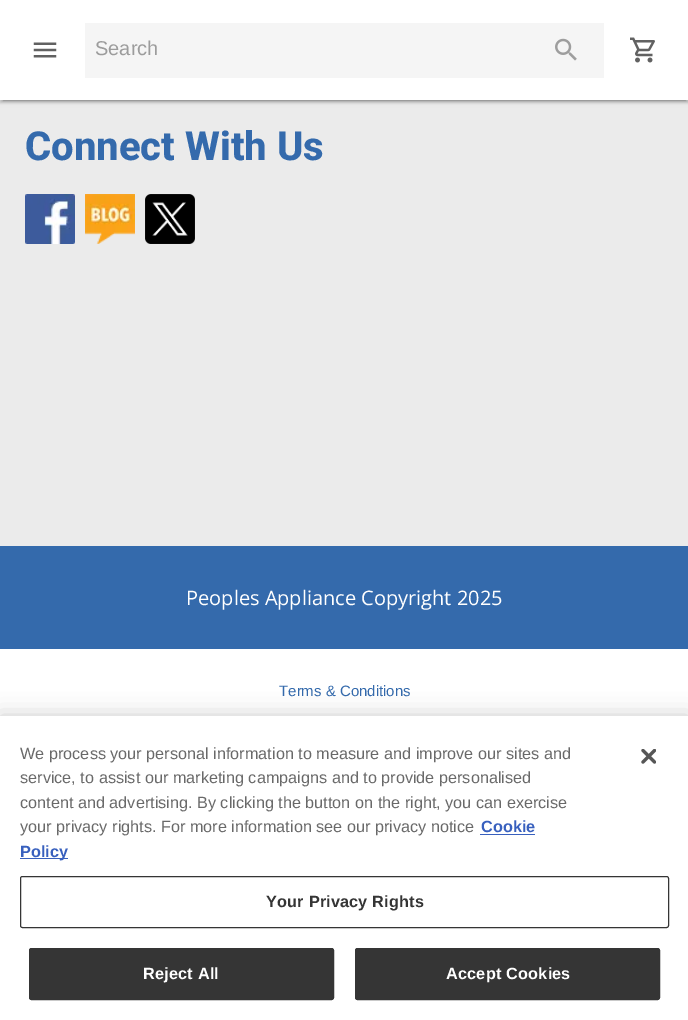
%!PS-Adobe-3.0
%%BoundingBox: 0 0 688 1020
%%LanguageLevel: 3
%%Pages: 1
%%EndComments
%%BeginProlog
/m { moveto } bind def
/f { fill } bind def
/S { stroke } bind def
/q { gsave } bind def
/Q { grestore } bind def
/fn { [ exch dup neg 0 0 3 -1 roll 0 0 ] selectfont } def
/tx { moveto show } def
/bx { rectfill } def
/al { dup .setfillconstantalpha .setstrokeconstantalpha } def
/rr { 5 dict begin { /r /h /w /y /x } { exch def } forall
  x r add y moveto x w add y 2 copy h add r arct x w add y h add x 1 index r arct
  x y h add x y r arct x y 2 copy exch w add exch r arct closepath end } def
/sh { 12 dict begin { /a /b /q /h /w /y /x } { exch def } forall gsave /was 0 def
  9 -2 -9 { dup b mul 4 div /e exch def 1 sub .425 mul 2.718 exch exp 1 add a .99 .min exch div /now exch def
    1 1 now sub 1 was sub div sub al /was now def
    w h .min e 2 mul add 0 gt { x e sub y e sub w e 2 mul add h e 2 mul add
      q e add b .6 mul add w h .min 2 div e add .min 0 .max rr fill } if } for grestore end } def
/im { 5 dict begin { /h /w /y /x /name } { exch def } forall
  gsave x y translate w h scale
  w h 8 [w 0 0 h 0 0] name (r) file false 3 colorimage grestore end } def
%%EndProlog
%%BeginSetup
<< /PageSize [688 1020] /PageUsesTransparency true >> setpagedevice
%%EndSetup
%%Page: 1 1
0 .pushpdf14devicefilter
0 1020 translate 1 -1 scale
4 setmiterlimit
1 setgray
0 0 688 1020 bx
0.922 setgray
0 100 688 446 bx
0 setgray
0 1 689 100 0 3 0.12 sh
0 3 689 100 0 1 0.14 sh
3 6 683 95 0 0.5 0.2 sh
1 setgray
0 0 688 100 bx
(image0.raw) 33 42 24 16 im
0.961 setgray
85 23 519 55 bx
/LiberationSans-Regular 20 fn
0.612 setgray
(Search) 95 55 tx
(image1.raw) 555 38 22 23 im
(image2.raw) 630 37 25 26 im
/Roboto-ExtraBold 40 fn
0.204 0.416 0.675 setrgbcolor
(Connect With Us) 25 160 tx
(image3.raw) 25 194 50 50 im
(image4.raw) 85 194 50 50 im
(image5.raw) 145 194 50 50 im
0 546 688 103 bx
/OpenSans-Regular 20 fn
1 setgray
(Peoples Appliance Copyright 2025) 186 605 tx
/LiberationSans-Regular 15 fn
0.204 0.416 0.675 setrgbcolor
(Terms & Conditions) 279 696 tx
0 setgray
0 716 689 304 0 11 0.2 sh
1 setgray
0 716 688 304 bx
/LiberationSans-Regular 16.25 fn
0.412 setgray
(We process your personal information to measure and improve our sites and) 20 759 tx
(service, to assist our marketing campaigns and to provide personalised) 20 783 tx
(content and advertising. By clicking the button on the right, you can exercise) 20 808 tx
(your privacy rights. For more information see our privacy notice) 20 832 tx
/LiberationSans-Bold 16.25 fn
0.22 0.376 0.745 setrgbcolor
(Cookie) 481 832 tx
480 834 55 1 bx
20 858 48 1 bx
(Policy) 20 857 tx
0.208 setgray
20.5 876.5 648 51 2 rr S
266 907 m 0.2 0 (Your Privacy Rights) ashow
29.5 948.5 304 51 2 rr q f Q
S
1 setgray
143 979 m 0.2 0 (Reject All) ashow
0.208 setgray
355.5 948.5 304 51 2 rr q f Q
S
1 setgray
446 979 m 0.2 0 (Accept Cookies) ashow
(image6.raw) 641 749 15 15 im
.poppdf14devicefilter showpage
%%EOF
